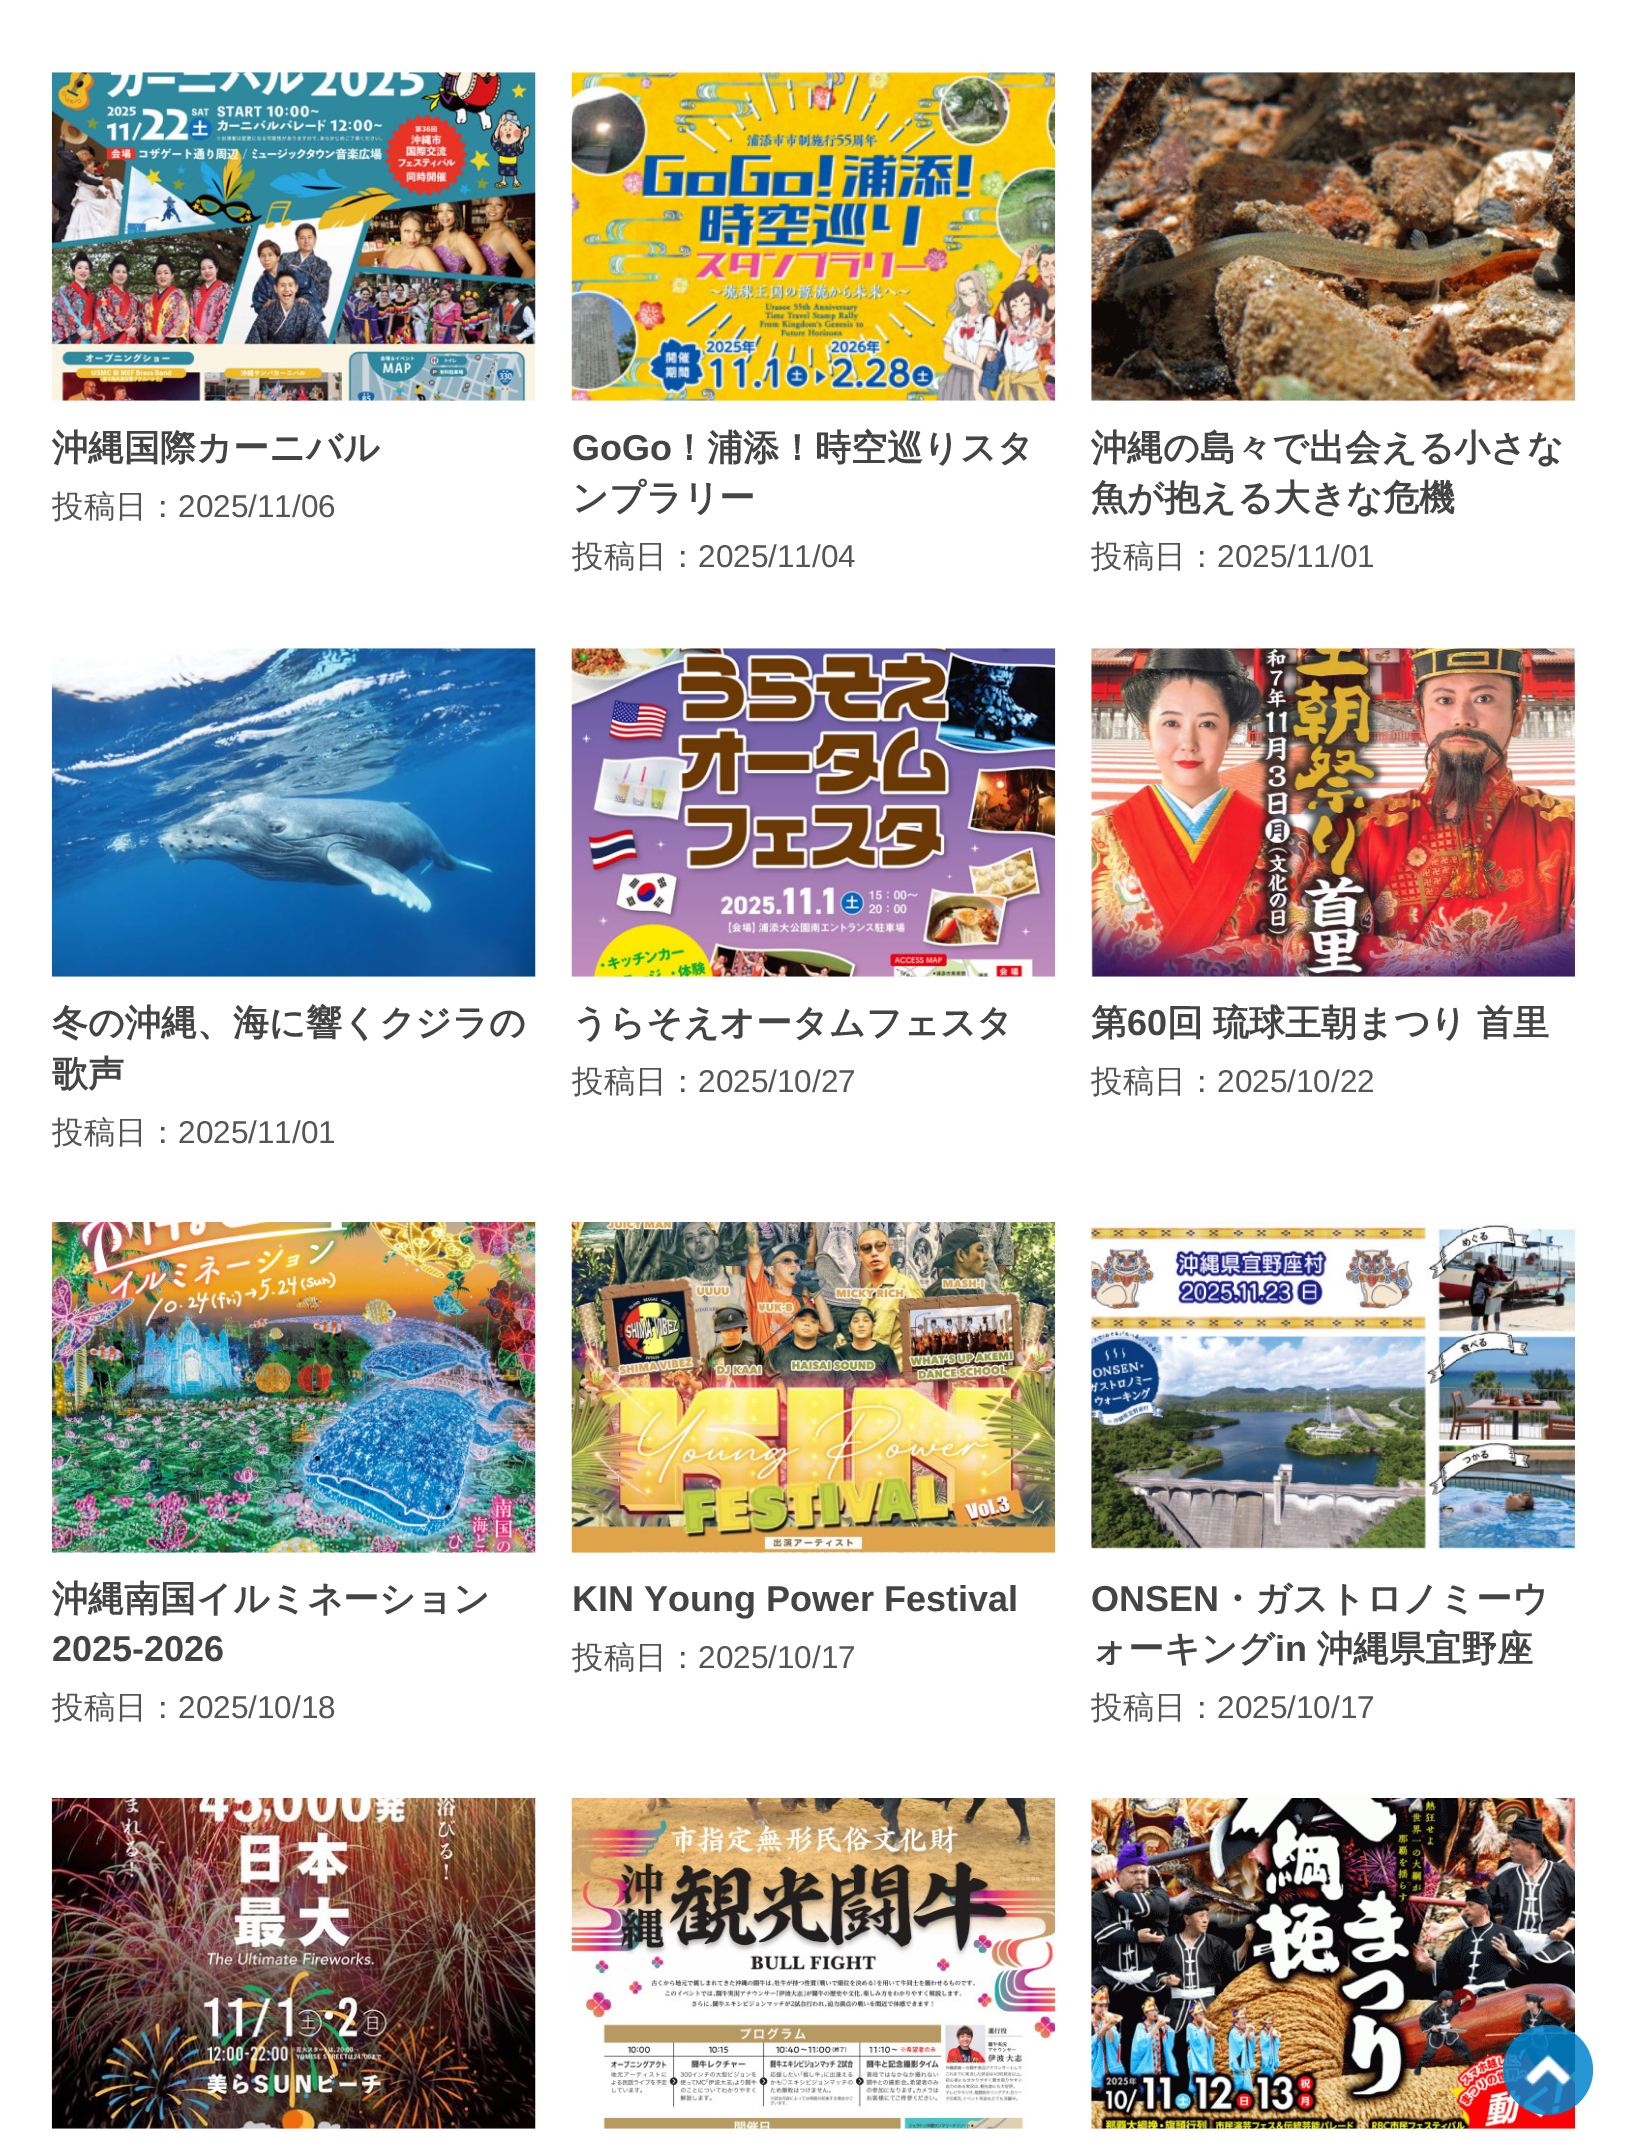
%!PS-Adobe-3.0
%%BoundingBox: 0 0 1626 2148
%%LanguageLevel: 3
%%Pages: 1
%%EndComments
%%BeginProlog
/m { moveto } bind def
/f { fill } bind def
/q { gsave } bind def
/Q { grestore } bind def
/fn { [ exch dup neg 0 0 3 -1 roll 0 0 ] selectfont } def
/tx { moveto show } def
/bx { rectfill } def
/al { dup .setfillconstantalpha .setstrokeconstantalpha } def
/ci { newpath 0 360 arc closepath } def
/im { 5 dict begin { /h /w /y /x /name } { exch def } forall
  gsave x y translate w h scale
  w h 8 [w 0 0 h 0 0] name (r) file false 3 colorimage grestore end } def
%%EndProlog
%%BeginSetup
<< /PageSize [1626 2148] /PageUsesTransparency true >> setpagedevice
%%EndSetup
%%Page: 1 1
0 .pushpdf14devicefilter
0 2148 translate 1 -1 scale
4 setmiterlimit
1 setgray
0 0 1626 2148 bx
(image0.raw) 51 72 485 329 im
/WenQuanYiZenHei-Bold 36 fn
0.267 setgray
(沖縄国際カーニバル) 52 460 tx
/WenQuanYiZenHei-Medium 31.5 fn
0.333 setgray
(投稿日：) 52 517 tx
/LiberationSans-Regular 31.5 fn
(2025/11/06) 178 517 tx
(image1.raw) 571 72 485 329 im
/LiberationSans-Bold 36 fn
0.267 setgray
(GoGo) 572 460 tx
/WenQuanYiZenHei-Bold 36 fn
(！浦添！時空巡りスタ) 671 460 tx
(ンプラリー) 572 510 tx
q
572 536 483 45 rectclip
/WenQuanYiZenHei-Medium 31.5 fn
0.333 setgray
(投稿日：) 572 567 tx
Q
/LiberationSans-Regular 31.5 fn
0.333 setgray
(2025/11/04) 698 567 tx
(image2.raw) 1091 72 484 329 im
/WenQuanYiZenHei-Bold 36 fn
0.267 setgray
(沖縄の島々で出会える小さな) 1091 460 tx
(魚が抱える大きな危機) 1091 510 tx
/WenQuanYiZenHei-Medium 31.5 fn
0.333 setgray
(投稿日：) 1091 567 tx
/LiberationSans-Regular 31.5 fn
(2025/11/01) 1217 567 tx
(image3.raw) 51 648 485 329 im
/WenQuanYiZenHei-Bold 36 fn
0.267 setgray
(冬の沖縄、海に響くクジラの) 52 1035 tx
(歌声) 52 1086 tx
/WenQuanYiZenHei-Medium 31.5 fn
0.333 setgray
(投稿日：) 52 1143 tx
/LiberationSans-Regular 31.5 fn
(2025/11/01) 178 1143 tx
(image4.raw) 571 648 485 329 im
/WenQuanYiZenHei-Bold 36 fn
0.267 setgray
(うらそえオータムフェスタ) 572 1035 tx
q
572 1060 483 45 rectclip
/WenQuanYiZenHei-Medium 31.5 fn
0.333 setgray
(投稿日：) 572 1092 tx
Q
/LiberationSans-Regular 31.5 fn
0.333 setgray
(2025/10/27) 698 1092 tx
(image5.raw) 1091 648 484 329 im
/WenQuanYiZenHei-Bold 36 fn
0.267 setgray
(第) 1091 1035 tx
/LiberationSans-Bold 36 fn
(60) 1127 1035 tx
/WenQuanYiZenHei-Bold 36 fn
1167 1035 m -1 0 32 (回 琉球王朝まつり 首里) widthshow
/WenQuanYiZenHei-Medium 31.5 fn
0.333 setgray
(投稿日：) 1091 1092 tx
/LiberationSans-Regular 31.5 fn
(2025/10/22) 1217 1092 tx
(image6.raw) 51 1222 485 331 im
/WenQuanYiZenHei-Bold 36 fn
0.267 setgray
(沖縄南国イルミネーション) 52 1611 tx
/LiberationSans-Bold 36 fn
(2025-2026) 52 1661 tx
/WenQuanYiZenHei-Medium 31.5 fn
0.333 setgray
(投稿日：) 52 1718 tx
/LiberationSans-Regular 31.5 fn
(2025/10/18) 178 1718 tx
(image7.raw) 571 1222 485 331 im
/LiberationSans-Bold 36 fn
0.267 setgray
(KIN Young Power Festival) 572 1611 tx
q
572 1636 483 45 rectclip
/WenQuanYiZenHei-Medium 31.5 fn
0.333 setgray
(投稿日：) 572 1668 tx
Q
/LiberationSans-Regular 31.5 fn
0.333 setgray
(2025/10/17) 698 1668 tx
(image8.raw) 1091 1222 484 328 im
/LiberationSans-Bold 36 fn
0.267 setgray
(ONSEN) 1091 1611 tx
/WenQuanYiZenHei-Bold 36 fn
(・ガストロノミーウ) 1219 1611 tx
(ォーキング) 1091 1661 tx
/LiberationSans-Bold 36 fn
(in) 1275 1661 tx
/WenQuanYiZenHei-Bold 36 fn
(沖縄県宜野座) 1317 1661 tx
/WenQuanYiZenHei-Medium 31.5 fn
0.333 setgray
(投稿日：) 1091 1718 tx
/LiberationSans-Regular 31.5 fn
(2025/10/17) 1217 1718 tx
(image9.raw) 51 1798 485 331 im
(image10.raw) 571 1798 485 331 im
(image11.raw) 1091 1798 484 331 im
0.85 al
0 0.518 0.804 setrgbcolor
1548 2070 45 ci f
1 al
(image12.raw) 1525 2054 46 32 im
.poppdf14devicefilter showpage
%%EOF
